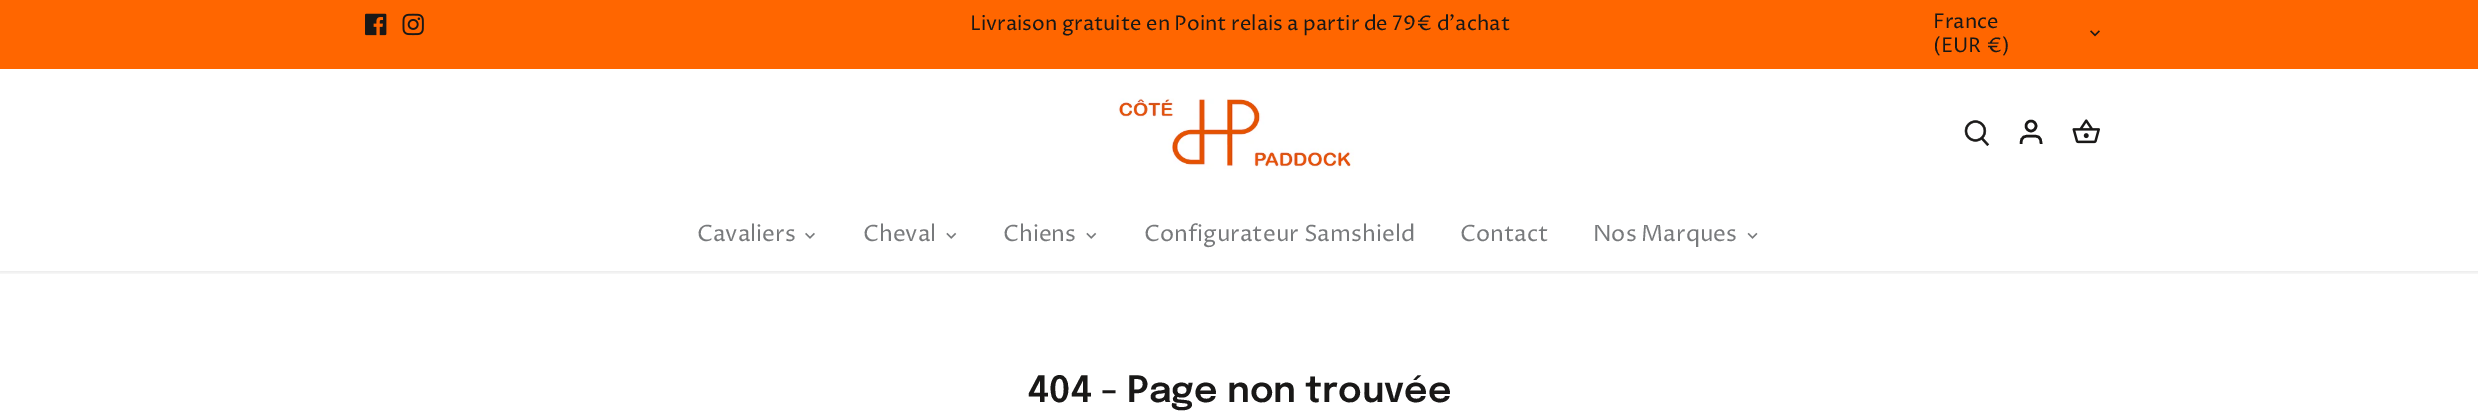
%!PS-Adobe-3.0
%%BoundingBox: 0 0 2478 416
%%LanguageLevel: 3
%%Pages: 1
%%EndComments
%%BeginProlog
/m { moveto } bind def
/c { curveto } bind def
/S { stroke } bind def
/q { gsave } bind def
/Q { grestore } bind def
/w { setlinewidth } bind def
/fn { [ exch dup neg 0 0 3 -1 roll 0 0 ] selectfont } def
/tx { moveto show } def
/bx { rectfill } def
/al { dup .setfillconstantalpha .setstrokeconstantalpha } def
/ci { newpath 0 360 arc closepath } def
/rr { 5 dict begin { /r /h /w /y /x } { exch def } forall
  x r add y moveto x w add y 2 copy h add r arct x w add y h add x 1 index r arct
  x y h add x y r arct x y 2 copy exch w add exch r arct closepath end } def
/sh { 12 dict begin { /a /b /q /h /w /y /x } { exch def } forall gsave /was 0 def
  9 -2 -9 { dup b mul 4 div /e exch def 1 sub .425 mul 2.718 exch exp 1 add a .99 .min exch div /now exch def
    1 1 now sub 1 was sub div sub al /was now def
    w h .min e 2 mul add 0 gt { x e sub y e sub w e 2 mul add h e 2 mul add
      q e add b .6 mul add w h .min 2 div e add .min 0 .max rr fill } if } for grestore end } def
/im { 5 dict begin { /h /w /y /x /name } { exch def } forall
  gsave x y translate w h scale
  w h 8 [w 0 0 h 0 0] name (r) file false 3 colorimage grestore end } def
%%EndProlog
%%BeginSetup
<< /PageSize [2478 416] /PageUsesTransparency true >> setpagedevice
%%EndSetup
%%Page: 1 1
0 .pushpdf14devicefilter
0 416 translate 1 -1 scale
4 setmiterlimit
1 setgray
0 0 2478 416 bx
q
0 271 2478 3 rectclip
0 setgray
-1 68 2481 205 0 2 0.08 sh
Q
1 0.4 0 setrgbcolor
0 0 2478 69 bx
(image0.raw) 365 13 22 23 im
(image1.raw) 402 13 22 23 im
/ProzaLibre-Regular 20.2 fn
0.098 0.094 0.09 setrgbcolor
(Livraison gratuite en Point relais a partir de 79€ d'achat) 970 30 tx
(France) 1933 28 tx
(image2.raw) 2090 30 10 7 im
(\(EUR €\)) 1933 52 tx
(image3.raw) 1118 98 236 71 im
(image4.raw) 1964 120 26 26 im
2.5 w
2031 126 5 ci S
2041 144 m 2041 136 2038 136 2031 136 c 2024.5 136 2021 136 2021 144 c S
(image5.raw) 2072 119 28 25 im
/ProzaLibre-Regular 22.5 fn
0.471 0.478 0.486 setrgbcolor
(Cavaliers) 697 241 tx
(image6.raw) 805 232 10 7 im
(Cheval) 863 241 tx
(image7.raw) 946 232 11 7 im
(Chiens) 1003 241 tx
(image7.raw) 1086 232 11 7 im
(Configurateur Samshield) 1144 241 tx
(Contact) 1460 241 tx
(Nos Marques) 1593 241 tx
(image8.raw) 1747 232 11 7 im
/Epilogue-SemiBold 36.25 fn
0.098 0.094 0.09 setrgbcolor
(404 - Page non trouvée) 1028 402 tx
.poppdf14devicefilter showpage
%%EOF
